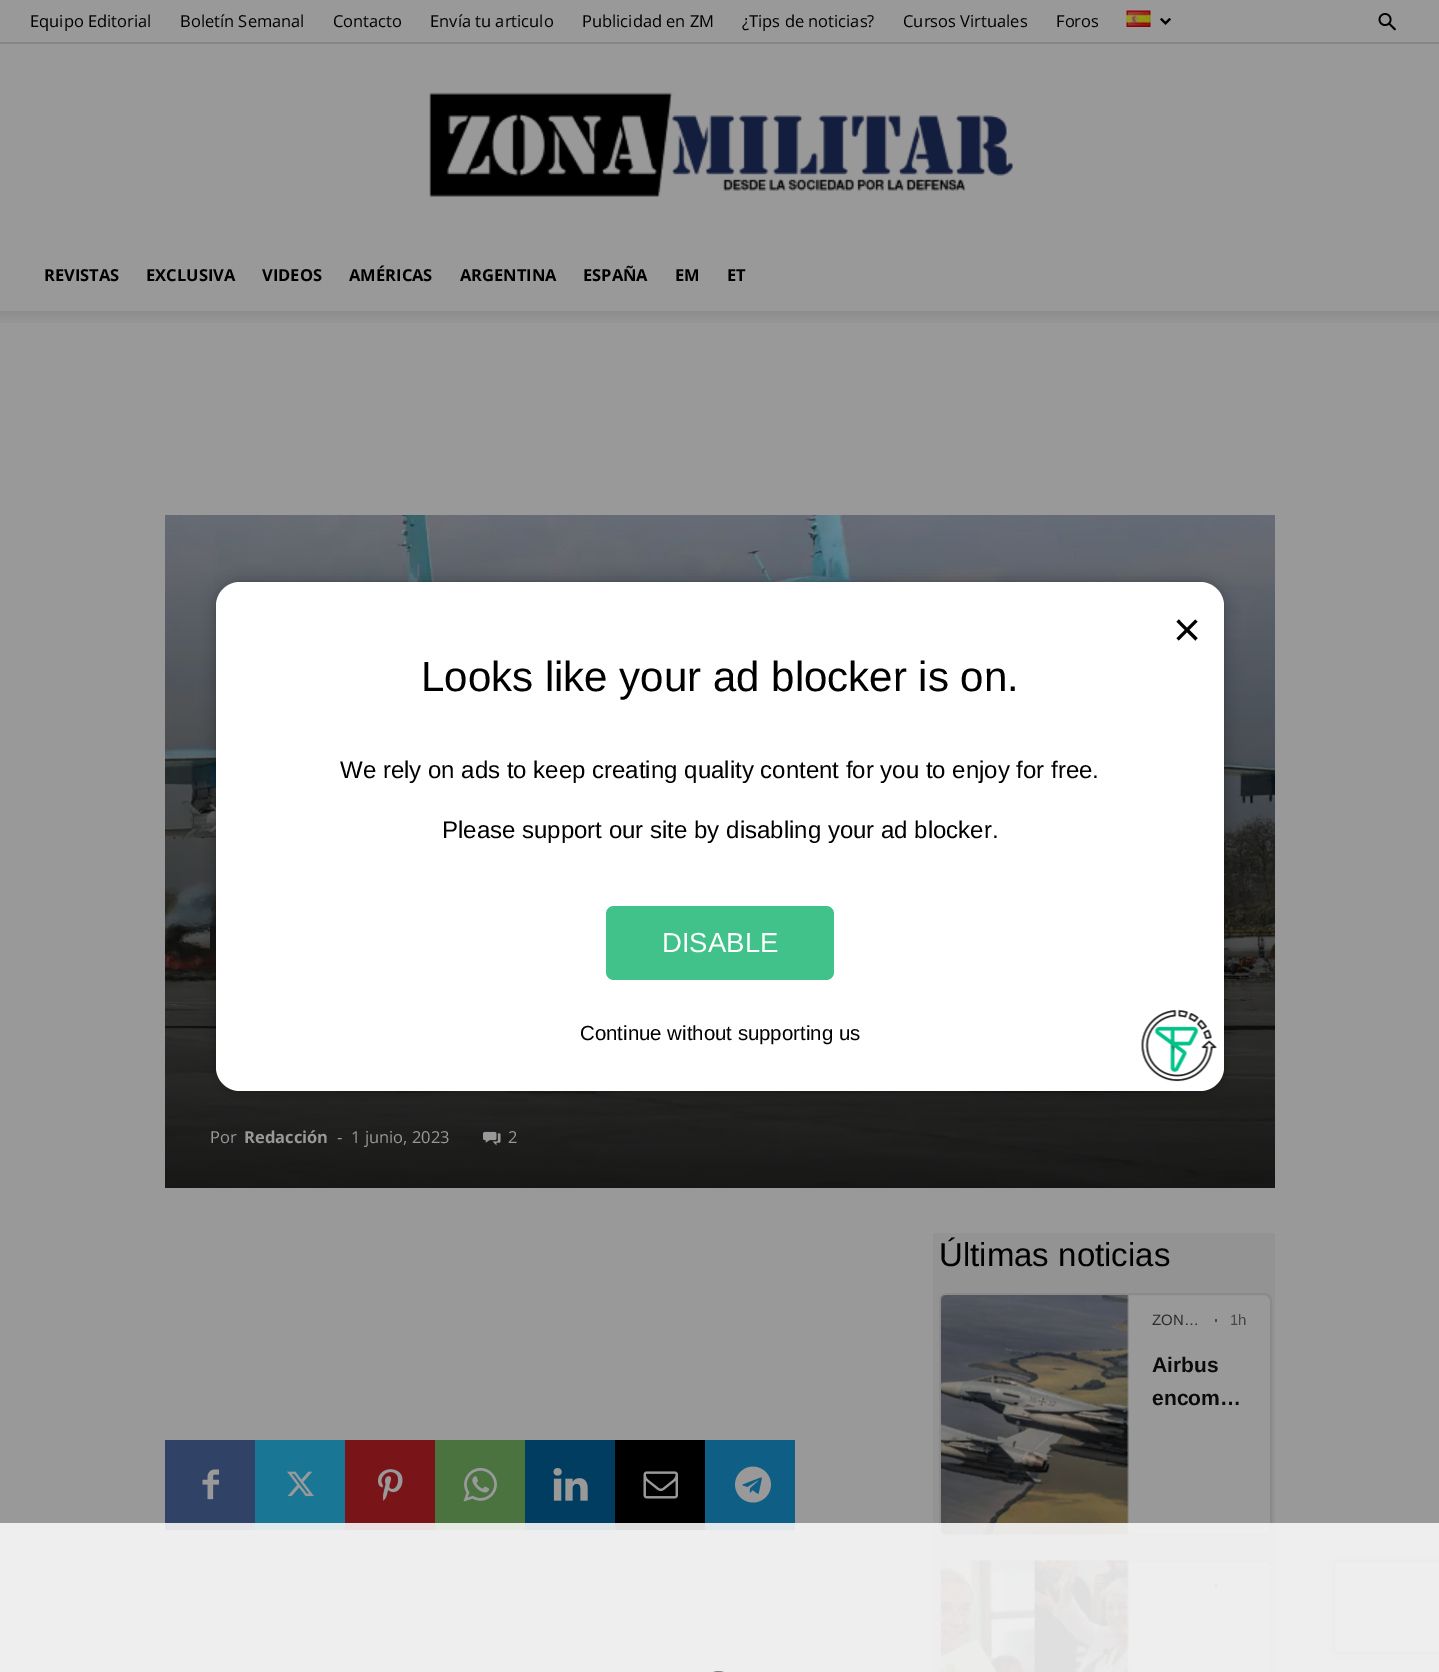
%!PS-Adobe-3.0
%%BoundingBox: 0 0 1439 1672
%%LanguageLevel: 3
%%Pages: 1
%%EndComments
%%BeginProlog
/m { moveto } bind def
/l { lineto } bind def
/c { curveto } bind def
/h { closepath } bind def
/f { fill } bind def
/S { stroke } bind def
/q { gsave } bind def
/Q { grestore } bind def
/w { setlinewidth } bind def
/fn { [ exch dup neg 0 0 3 -1 roll 0 0 ] selectfont } def
/tx { moveto show } def
/bx { rectfill } def
/al { dup .setfillconstantalpha .setstrokeconstantalpha } def
/rr { 5 dict begin { /r /h /w /y /x } { exch def } forall
  x r add y moveto x w add y 2 copy h add r arct x w add y h add x 1 index r arct
  x y h add x y r arct x y 2 copy exch w add exch r arct closepath end } def
/sh { 12 dict begin { /a /b /q /h /w /y /x } { exch def } forall gsave /was 0 def
  9 -2 -9 { dup b mul 4 div /e exch def 1 sub .425 mul 2.718 exch exp 1 add a .99 .min exch div /now exch def
    1 1 now sub 1 was sub div sub al /was now def
    w h .min e 2 mul add 0 gt { x e sub y e sub w e 2 mul add h e 2 mul add
      q e add b .6 mul add w h .min 2 div e add .min 0 .max rr fill } if } for grestore end } def
/im { 5 dict begin { /h /w /y /x /name } { exch def } forall
  gsave x y translate w h scale
  w h 8 [w 0 0 h 0 0] name (r) file false 3 colorimage grestore end } def
%%EndProlog
%%BeginSetup
<< /PageSize [1439 1672] /PageUsesTransparency true >> setpagedevice
%%EndSetup
%%Page: 1 1
0 .pushpdf14devicefilter
0 1672 translate 1 -1 scale
4 setmiterlimit
0.6 setgray
0 0 1439 1672 bx
0.525 setgray
0 42 1439 2 bx
/OpenSans-Regular 16.5 fn
0 setgray
(Equipo Editorial) 30 27 tx
(Boletín Semanal) 180 27 tx
(Contacto) 333 27 tx
(Envía tu articulo) 430 27 tx
(Publicidad en ZM) 582 27 tx
(¿Tips de noticias?) 742 27 tx
(Cursos Virtuales) 903 27 tx
(Foros) 1056 27 tx
(image0.raw) 1126 10 25 17 im
(image1.raw) 1160 18 11 7 im
(image2.raw) 1378 13 18 18 im
(image3.raw) 429 92 584 105 im
/OpenSans-Bold 16.5 fn
(REVISTAS) 44 281 tx
(EXCLUSIVA) 146 281 tx
(VIDEOS) 262 281 tx
(AMÉRICAS) 349 281 tx
(ARGENTINA) 460 281 tx
(ESPAÑA) 583 281 tx
(EM) 675 281 tx
(ET) 727 281 tx
(image4.raw) 0 311 1439 12 im
(image5.raw) 165 515 1110 673 im
0.078 setgray
210 926 6 25 bx
/OpenSans-Regular 16.5 fn
0.6 setgray
(Por) 210 1143 tx
/OpenSans-Bold 16.5 fn
(Redacción) 244 1143 tx
/OpenSans-Regular 16.5 fn
(-) 337 1143 tx
(1 junio, 2023) 351 1143 tx
(image6.raw) 483 1131 18 15 im
(2) 508 1143 tx
0.576 0.576 0.58 setrgbcolor
933 1233 342 439 bx
/LiberationSans-Regular 33 fn
0 setgray
(Últimas noticias) 939 1266 tx
0.6 setgray
940 1294 331 241 7 rr q f Q
0.541 setgray
2 w
S
0.522 setgray
947 1295 m 1128 1295 l 1128 1535 l 947 1535 l 943.5 1535 941 1532.5 941 1529 c 941 1301 l 941 1297.5 943.5 1295 947 1295 c h f
(image7.raw) 941 1295 188 240 im
/LiberationSans-Regular 15 fn
0.173 setgray
(ZON…) 1152 1325 tx
0.275 setgray
1215 1319 2 3 1 rr f
(1h) 1230 1325 tx
/LiberationSans-Bold 21 fn
0.043 0.043 0.047 setrgbcolor
(Airbus) 1152 1372 tx
(encom…) 1152 1405 tx
0.6 setgray
940 1560 331 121 7 rr q f Q
0.541 setgray
S
0.522 setgray
947 1560 m 1128 1560 l 1128 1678 l 947 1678 l 943.5 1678 941 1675.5 941 1672 c 941 1566 l 941 1562.5 943.5 1560 947 1560 c h f
(image8.raw) 941 1559 188 113 im
0.275 setgray
1215 1584 2 3 1 rr f
0.192 0.259 0.404 setrgbcolor
165 1440 90 90 bx
(image9.raw) 202 1469 17 31 im
0.098 0.463 0.58 setrgbcolor
255 1440 90 90 bx
(image10.raw) 287 1471 27 26 im
0.475 0.078 0.098 setrgbcolor
345 1440 90 90 bx
(image11.raw) 378 1469 25 32 im
0.29 0.451 0.251 setrgbcolor
435 1440 90 90 bx
(image12.raw) 463 1467 34 35 im
0.004 0.239 0.376 setrgbcolor
525 1440 90 90 bx
(image13.raw) 553 1468 35 33 im
0 setgray
615 1440 90 90 bx
(image14.raw) 643 1471 35 28 im
0.055 0.369 0.522 setrgbcolor
705 1440 90 90 bx
(image15.raw) 735 1466 36 37 im
0 setgray
216 582 1008 509 24 7.5 0.3 sh
1 setgray
216 582 1008 509 24 rr f
/LiberationSans-Regular 48 fn
0 setgray
(×) 1173 646 tx
/LiberationSans-Regular 42 fn
(Looks like your ad blocker is on.) 421 691 tx
/LiberationSans-Regular 24 fn
(We rely on ads to keep creating quality content for you to enjoy for free.) 340 778 tx
(Please support our site by disabling your ad blocker.) 442 838 tx
0.251 0.761 0.541 setrgbcolor
606 906 228 74 8 rr f
/LiberationSans-Regular 27.5 fn
1 setgray
(DISABLE) 662 952 tx
/LiberationSans-Regular 20.4 fn
0 setgray
(Continue without supporting us) 580 1040 tx
(image16.raw) 1141 1010 76 72 im
q
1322 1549 m 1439 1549 l 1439 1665 l 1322 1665 l h 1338 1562 m 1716 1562 l 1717.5 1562 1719 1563.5 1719 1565 c 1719 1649 l 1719 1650.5 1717.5 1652 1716 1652 c 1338 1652 l 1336.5 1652 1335 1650.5 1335 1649 c 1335 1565 l 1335 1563.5 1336.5 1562 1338 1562 c h eoclip newpath
0.302 setgray
1335 1562 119 90 3 4 1 sh
Q
0.9 al
0.969 setgray
0 1523 1439 149 bx
1 al
0.961 setgray
703 1672 31 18 15.5 rr S
0.533 setgray
703 1672 31 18 15.5 rr S
.poppdf14devicefilter showpage
%%EOF
